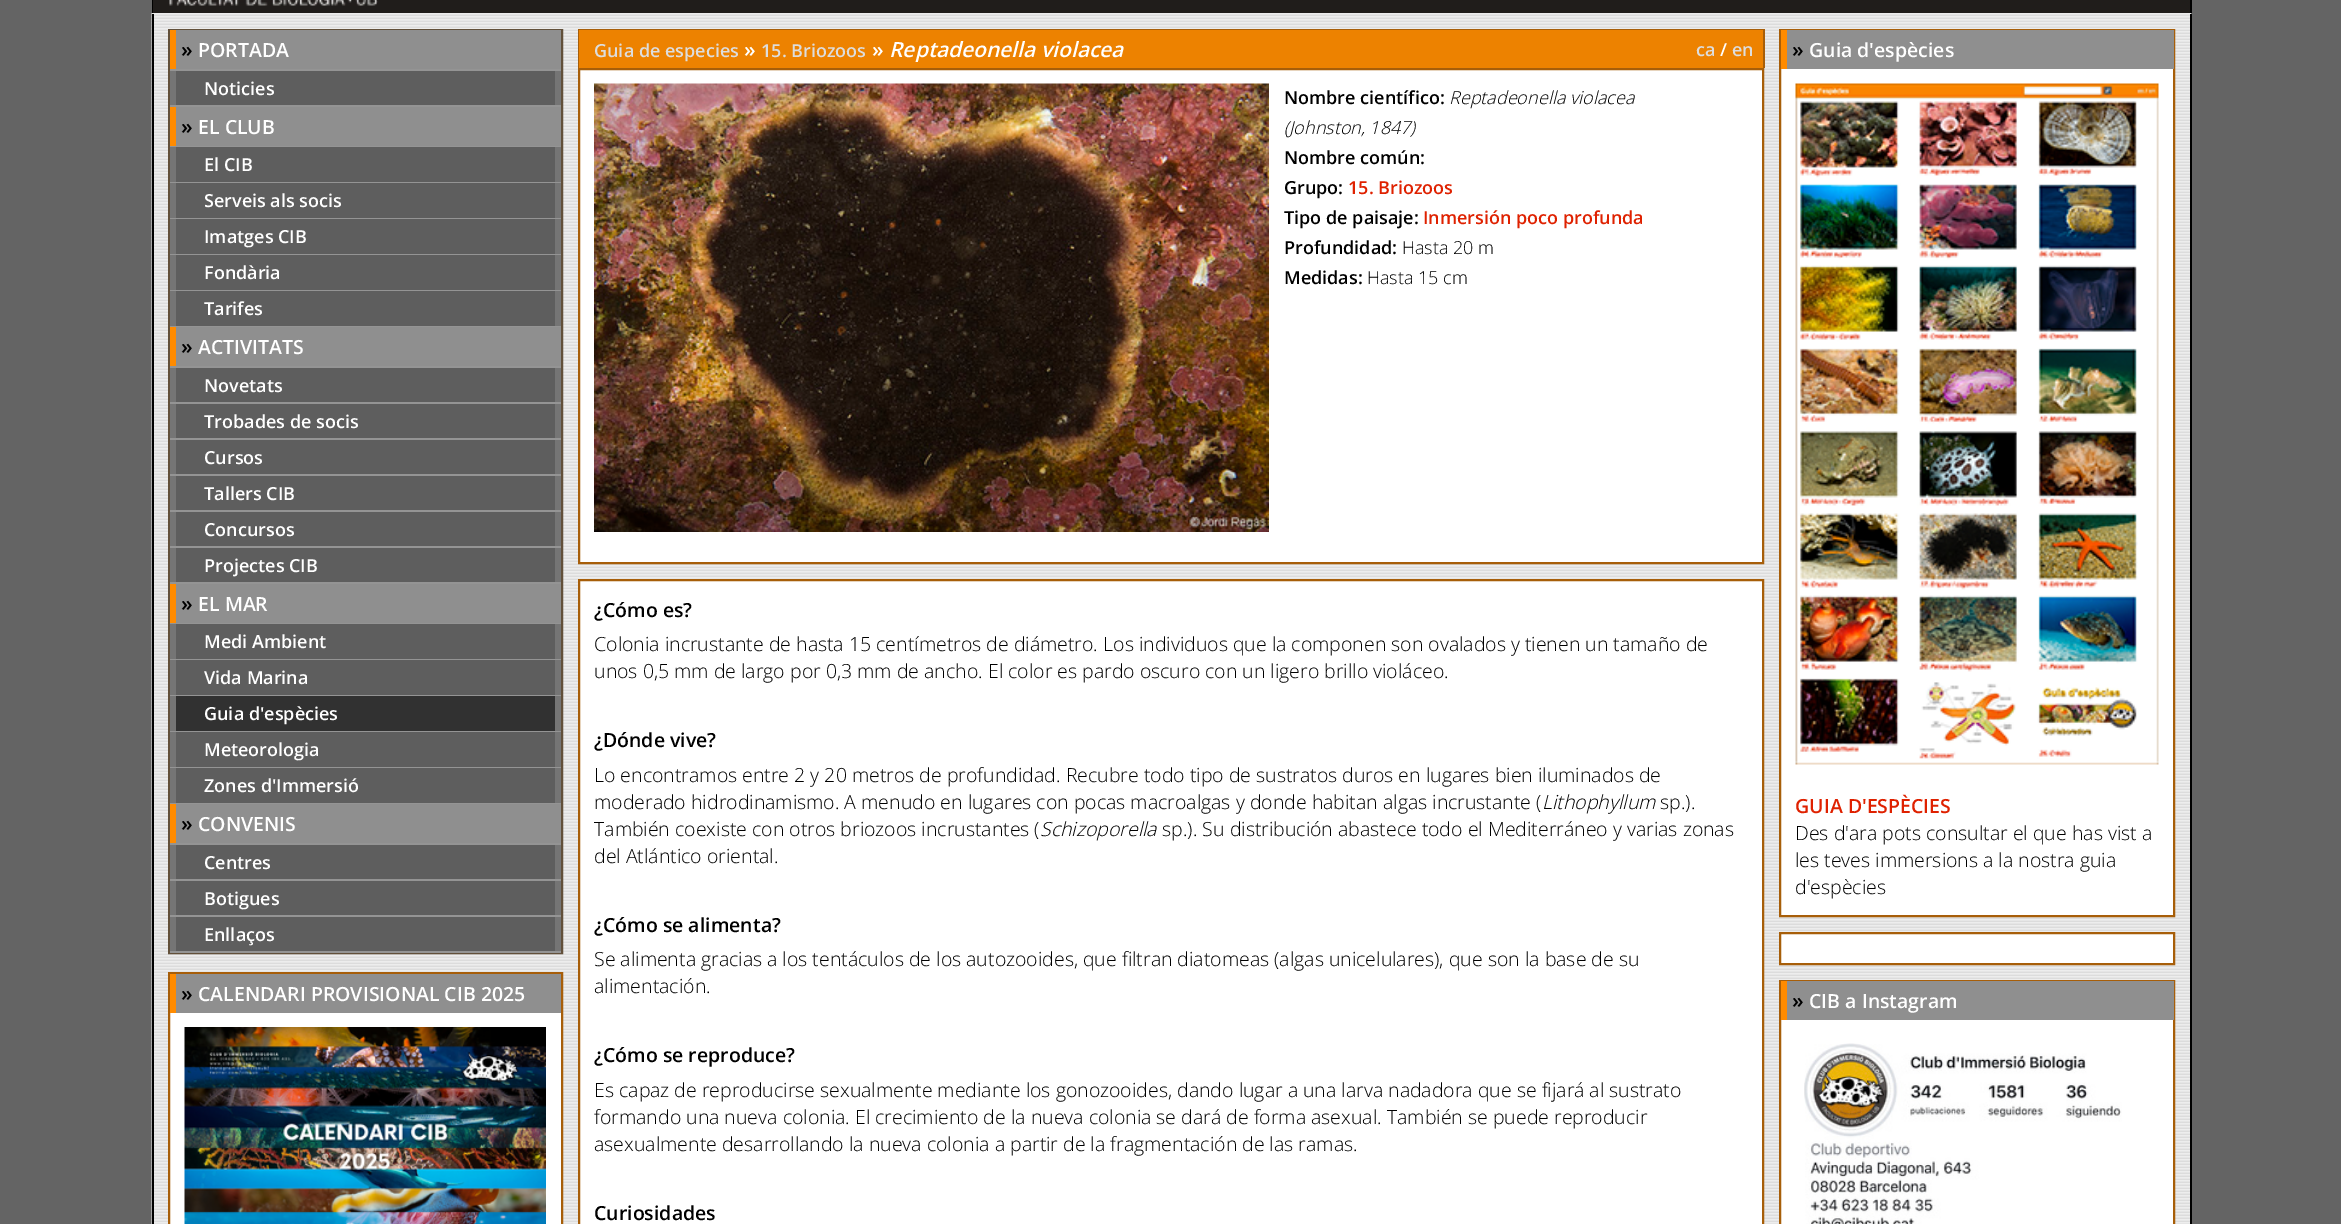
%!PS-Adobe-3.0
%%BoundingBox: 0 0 2341 1224
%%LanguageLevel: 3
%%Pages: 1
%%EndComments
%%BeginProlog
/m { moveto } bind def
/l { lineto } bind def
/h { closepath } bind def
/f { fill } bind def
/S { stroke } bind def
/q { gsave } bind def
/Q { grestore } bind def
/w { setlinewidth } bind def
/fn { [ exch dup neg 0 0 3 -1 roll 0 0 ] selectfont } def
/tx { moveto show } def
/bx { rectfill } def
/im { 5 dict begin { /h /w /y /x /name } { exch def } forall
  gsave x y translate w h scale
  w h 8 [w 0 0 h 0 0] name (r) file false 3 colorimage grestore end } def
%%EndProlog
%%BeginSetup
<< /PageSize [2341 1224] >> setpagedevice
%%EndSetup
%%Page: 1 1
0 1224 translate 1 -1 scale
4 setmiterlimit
0.392 setgray
0 0 2341 1224 bx
0 setgray
2190 0 2 14 bx
152 0 1 14 bx
0.125 0.114 0.106 setrgbcolor
153 0 2037 13 bx
(image0.raw) 169 0 209 6 im
(image1.raw) 151 13 2041 1211 im
0 setgray
2190 14 2 1210 bx
152 14 2 1210 bx
0.384 0.314 0.227 setrgbcolor
2 w
169 30 393 923 rectstroke
0.58 setgray
170 69 391 2 bx
0.561 setgray
176 30 385 39 bx
1 0.545 0 setrgbcolor
170 30 6 39 bx
/OpenSans-SemiBold 21 fn
0 setgray
(») 181 57 tx
/OpenSans-SemiBold 19.5 fn
1 setgray
(PORTADA) 198 57 tx
0.58 setgray
170 105 391 2 bx
0.369 setgray
176 71 379 34 bx
0.459 setgray
555 71 6 34 bx
170 71 6 34 bx
/OpenSans-SemiBold 18 fn
1 setgray
(Noticies) 204 95 tx
0.58 setgray
170 146 391 1 bx
0.561 setgray
176 107 385 39 bx
1 0.545 0 setrgbcolor
170 107 6 39 bx
/OpenSans-SemiBold 21 fn
0 setgray
(») 181 134 tx
/OpenSans-SemiBold 19.5 fn
1 setgray
(EL CLUB) 198 134 tx
0.58 setgray
170 182 391 1 bx
0.369 setgray
176 147 379 35 bx
0.459 setgray
555 147 6 35 bx
170 147 6 35 bx
/OpenSans-SemiBold 18 fn
1 setgray
(El CIB) 204 171 tx
0.58 setgray
170 218 391 1 bx
0.369 setgray
176 183 379 35 bx
0.459 setgray
555 183 6 35 bx
170 183 6 35 bx
1 setgray
(Serveis als socis) 204 207 tx
0.58 setgray
170 254 391 1 bx
0.369 setgray
176 219 379 35 bx
0.459 setgray
555 219 6 35 bx
170 219 6 35 bx
1 setgray
(Imatges CIB) 204 243 tx
0.58 setgray
170 290 391 1 bx
0.369 setgray
176 255 379 35 bx
0.459 setgray
555 255 6 35 bx
170 255 6 35 bx
1 setgray
(Fondària) 204 279 tx
0.58 setgray
170 326 391 1 bx
0.369 setgray
176 291 379 35 bx
0.459 setgray
555 291 6 35 bx
170 291 6 35 bx
1 setgray
(Tarifes) 204 315 tx
0.58 setgray
170 366 391 2 bx
0.561 setgray
176 327 385 39 bx
1 0.545 0 setrgbcolor
170 327 6 39 bx
/OpenSans-SemiBold 21 fn
0 setgray
(») 181 354 tx
/OpenSans-SemiBold 19.5 fn
1 setgray
(ACTIVITATS) 198 354 tx
0.58 setgray
170 402 391 2 bx
0.369 setgray
176 368 379 34 bx
0.459 setgray
555 368 6 34 bx
170 368 6 34 bx
/OpenSans-SemiBold 18 fn
1 setgray
(Novetats) 204 392 tx
0.58 setgray
170 438 391 2 bx
0.369 setgray
176 404 379 34 bx
0.459 setgray
555 404 6 34 bx
170 404 6 34 bx
1 setgray
(Trobades de socis) 204 428 tx
0.58 setgray
170 474 391 2 bx
0.369 setgray
176 440 379 34 bx
0.459 setgray
555 440 6 34 bx
170 440 6 34 bx
1 setgray
(Cursos) 204 464 tx
0.58 setgray
170 510 391 2 bx
0.369 setgray
176 476 379 34 bx
0.459 setgray
555 476 6 34 bx
170 476 6 34 bx
1 setgray
(Tallers CIB) 204 500 tx
0.58 setgray
170 546 391 2 bx
0.369 setgray
176 512 379 34 bx
0.459 setgray
555 512 6 34 bx
170 512 6 34 bx
1 setgray
(Concursos) 204 536 tx
0.58 setgray
170 582 391 2 bx
0.369 setgray
176 548 379 34 bx
0.459 setgray
555 548 6 34 bx
170 548 6 34 bx
1 setgray
(Projectes CIB) 204 572 tx
0.58 setgray
170 623 391 1 bx
0.561 setgray
176 584 385 39 bx
1 0.545 0 setrgbcolor
170 584 6 39 bx
/OpenSans-SemiBold 21 fn
0 setgray
(») 181 611 tx
/OpenSans-SemiBold 19.5 fn
1 setgray
(EL MAR) 198 611 tx
0.58 setgray
170 659 391 1 bx
0.369 setgray
176 624 379 35 bx
0.459 setgray
555 624 6 35 bx
170 624 6 35 bx
/OpenSans-SemiBold 18 fn
1 setgray
(Medi Ambient) 204 648 tx
0.58 setgray
170 695 391 1 bx
0.369 setgray
176 660 379 35 bx
0.459 setgray
555 660 6 35 bx
170 660 6 35 bx
1 setgray
(Vida Marina) 204 684 tx
0.58 setgray
170 731 391 1 bx
0.192 setgray
176 696 379 35 bx
0.459 setgray
555 696 6 35 bx
170 696 6 35 bx
1 setgray
(Guia d'espècies) 204 720 tx
0.58 setgray
170 767 391 1 bx
0.369 setgray
176 732 379 35 bx
0.459 setgray
555 732 6 35 bx
170 732 6 35 bx
1 setgray
(Meteorologia) 204 756 tx
0.58 setgray
170 803 391 1 bx
0.369 setgray
176 768 379 35 bx
0.459 setgray
555 768 6 35 bx
170 768 6 35 bx
1 setgray
(Zones d'Immersió) 204 792 tx
0.58 setgray
170 843 391 2 bx
0.561 setgray
176 804 385 39 bx
1 0.545 0 setrgbcolor
170 804 6 39 bx
/OpenSans-SemiBold 21 fn
0 setgray
(») 181 831 tx
/OpenSans-SemiBold 19.5 fn
1 setgray
(CONVENIS) 198 831 tx
0.58 setgray
170 879 391 2 bx
0.369 setgray
176 845 379 34 bx
0.459 setgray
555 845 6 34 bx
170 845 6 34 bx
/OpenSans-SemiBold 18 fn
1 setgray
(Centres) 204 869 tx
0.58 setgray
170 915 391 2 bx
0.369 setgray
176 881 379 34 bx
0.459 setgray
555 881 6 34 bx
170 881 6 34 bx
1 setgray
(Botigues) 204 905 tx
0.58 setgray
170 951 391 2 bx
0.369 setgray
176 917 379 34 bx
0.459 setgray
555 917 6 34 bx
170 917 6 34 bx
1 setgray
(Enllaços) 204 941 tx
170 1013 391 211 bx
0.655 0.369 0.035 setrgbcolor
169 973 393 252 rectstroke
0.561 setgray
176 974 385 39 bx
1 0.545 0 setrgbcolor
170 974 6 39 bx
/OpenSans-SemiBold 21 fn
0 setgray
(») 181 1001 tx
/OpenSans-SemiBold 19.5 fn
1 setgray
(CALENDARI PROVISIONAL CIB 2025) 198 1001 tx
(image2.raw) 184 1027 362 197 im
0.655 0.369 0.035 setrgbcolor
578 29 1186 1 bx
1763 29 2 39 bx
578 29 2 39 bx
0.929 0.51 0 setrgbcolor
579 30 1184 38 bx
/OpenSans-SemiBold 18 fn
0.867 setgray
(Guia de especies) 594 57 tx
/OpenSans-SemiBold 21 fn
1 setgray
(») 744 57 tx
/OpenSans-SemiBold 18 fn
0.867 setgray
(15. Briozoos) 761 57 tx
/OpenSans-SemiBold 21 fn
1 setgray
(») 872 57 tx
/OpenSans-SemiBoldItalic 21 fn
(Reptadeonella violacea) 889 57 tx
/OpenSans-SemiBold 18 fn
0.867 setgray
(ca) 1696 56 tx
1 setgray
(/) 1720 56 tx
0.867 setgray
(en) 1732 56 tx
1 setgray
579 69 m 1763 69 l 1763 563 l 579 563 l h q f Q
0.655 0.369 0.035 setrgbcolor
S
(image3.raw) 594 83 675 449 im
0 setgray
(Nombre científico:) 1284 104 tx
/OpenSans-LightItalic 18 fn
(Reptadeonella violacea) 1449 104 tx
(\(Johnston, 1847\)) 1284 134 tx
/OpenSans-SemiBold 18 fn
(Nombre común:) 1284 164 tx
(Grupo:) 1284 194 tx
0.875 0.129 0 setrgbcolor
(15. Briozoos) 1348 194 tx
0 setgray
(Tipo de paisaje:) 1284 224 tx
0.875 0.129 0 setrgbcolor
(Inmersión poco profunda) 1423 224 tx
0 setgray
(Profundidad:) 1284 254 tx
/OpenSans-Light 18 fn
(Hasta 20 m) 1402 254 tx
/OpenSans-SemiBold 18 fn
(Medidas:) 1284 284 tx
/OpenSans-Light 18 fn
(Hasta 15 cm) 1367 284 tx
1 setgray
579 580 m 1763 580 l 1763 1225 l 579 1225 l h q f Q
0.655 0.369 0.035 setrgbcolor
S
/OpenSans-SemiBold 19.5 fn
0 setgray
(¿Cómo es?) 594 617 tx
/OpenSans-Light 19.5 fn
(Colonia incrustante de hasta 15 centímetros de diámetro. Los individuos que la componen son ovalados y tienen un tamaño de) 594 651 tx
(unos 0,5 mm de largo por 0,3 mm de ancho. El color es pardo oscuro con un ligero brillo violáceo.) 594 678 tx
/OpenSans-SemiBold 19.5 fn
(¿Dónde vive?) 594 747 tx
/OpenSans-Light 19.5 fn
(Lo encontramos entre 2 y 20 metros de profundidad. Recubre todo tipo de sustratos duros en lugares bien iluminados de) 594 782 tx
(moderado hidrodinamismo. A menudo en lugares con pocas macroalgas y donde habitan algas incrustante \() 594 809 tx
/OpenSans-LightItalic 19.5 fn
(Lithophyllum) 1542 809 tx
/OpenSans-Light 19.5 fn
(sp.\).) 1660 809 tx
(También coexiste con otros briozoos incrustantes \() 594 836 tx
/OpenSans-LightItalic 19.5 fn
(Schizoporella) 1040 836 tx
/OpenSans-Light 19.5 fn
(sp.\). Su distribución abastece todo el Mediterráneo y varias zonas) 1162 836 tx
(del Atlántico oriental.) 594 863 tx
/OpenSans-SemiBold 19.5 fn
(¿Cómo se alimenta?) 594 932 tx
/OpenSans-Light 19.5 fn
(Se alimenta gracias a los tentáculos de los autozooides, que filtran diatomeas \(algas unicelulares\), que son la base de su) 594 966 tx
(alimentación.) 594 993 tx
/OpenSans-SemiBold 19.5 fn
(¿Cómo se reproduce?) 594 1062 tx
/OpenSans-Light 19.5 fn
(Es capaz de reproducirse sexualmente mediante los gonozooides, dando lugar a una larva nadadora que se fijará al sustrato) 594 1097 tx
(formando una nueva colonia. El crecimiento de la nueva colonia se dará de forma asexual. También se puede reproducir) 594 1124 tx
(asexualmente desarrollando la nueva colonia a partir de la fragmentación de las ramas.) 594 1151 tx
/OpenSans-SemiBold 19.5 fn
(Curiosidades) 594 1220 tx
1 setgray
1781 69 392 846 bx
0.655 0.369 0.035 setrgbcolor
1780 30 394 886 rectstroke
0.561 setgray
1787 30 387 39 bx
1 0.545 0 setrgbcolor
1781 30 6 39 bx
/OpenSans-SemiBold 21 fn
0 setgray
(») 1792 57 tx
/OpenSans-SemiBold 19.5 fn
1 setgray
(Guia d'espècies) 1809 57 tx
(image4.raw) 1795 83 364 682 im
0.875 0.129 0 setrgbcolor
(GUIA D'ESPÈCIES) 1795 813 tx
/OpenSans-Light 19.5 fn
0 setgray
(Des d'ara pots consultar el que has vist a) 1795 840 tx
(les teves immersions a la nostra guia) 1795 867 tx
(d'espècies) 1795 894 tx
1 setgray
1780 933 m 2174 933 l 2174 964 l 1780 964 l h q f Q
0.655 0.369 0.035 setrgbcolor
S
1 setgray
1781 1020 392 204 bx
0.655 0.369 0.035 setrgbcolor
1780 981 394 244 rectstroke
0.561 setgray
1787 981 387 39 bx
1 0.545 0 setrgbcolor
1781 981 6 39 bx
/OpenSans-SemiBold 21 fn
0 setgray
(») 1792 1008 tx
/OpenSans-SemiBold 19.5 fn
1 setgray
(CIB a Instagram) 1809 1008 tx
(image5.raw) 1804 1043 318 181 im
showpage
%%EOF
